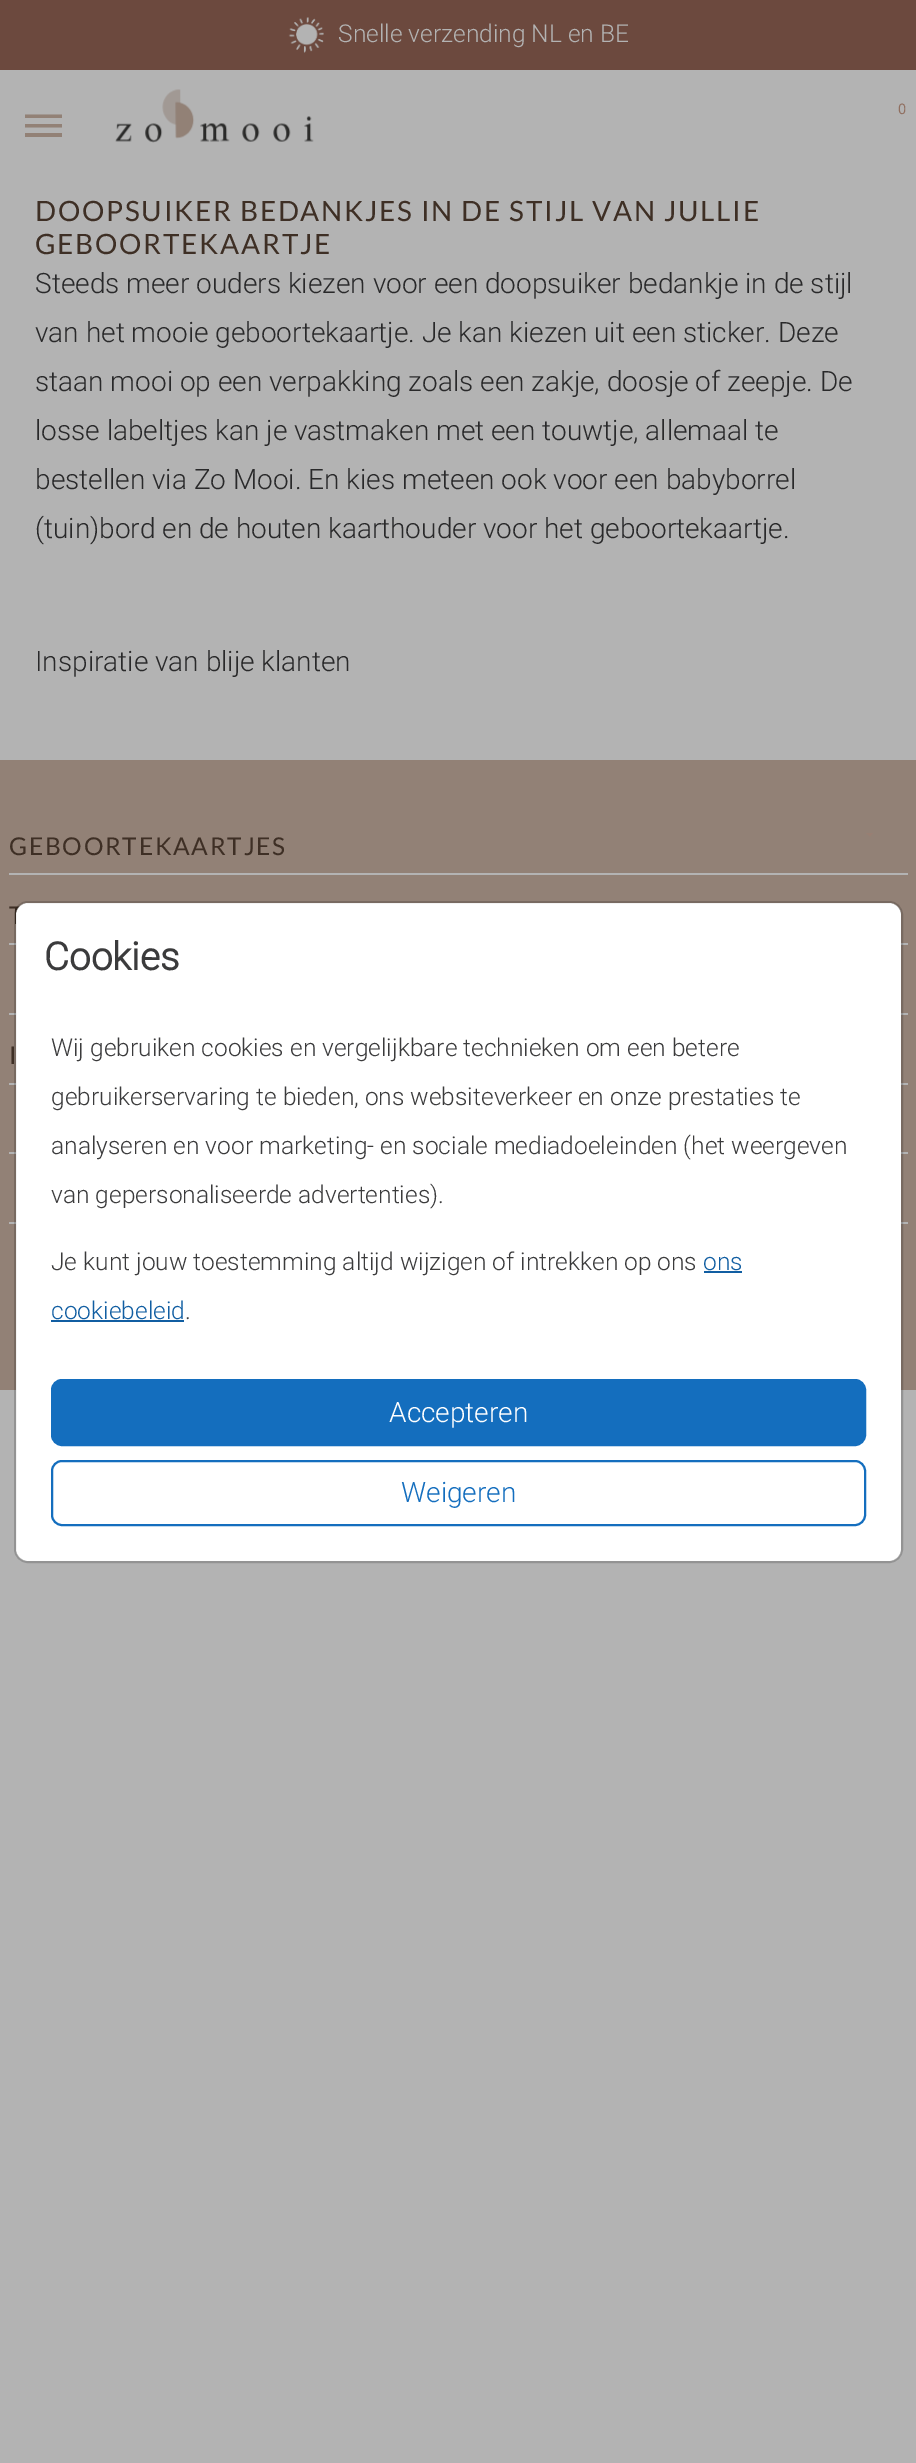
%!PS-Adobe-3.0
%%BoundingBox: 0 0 916 2463
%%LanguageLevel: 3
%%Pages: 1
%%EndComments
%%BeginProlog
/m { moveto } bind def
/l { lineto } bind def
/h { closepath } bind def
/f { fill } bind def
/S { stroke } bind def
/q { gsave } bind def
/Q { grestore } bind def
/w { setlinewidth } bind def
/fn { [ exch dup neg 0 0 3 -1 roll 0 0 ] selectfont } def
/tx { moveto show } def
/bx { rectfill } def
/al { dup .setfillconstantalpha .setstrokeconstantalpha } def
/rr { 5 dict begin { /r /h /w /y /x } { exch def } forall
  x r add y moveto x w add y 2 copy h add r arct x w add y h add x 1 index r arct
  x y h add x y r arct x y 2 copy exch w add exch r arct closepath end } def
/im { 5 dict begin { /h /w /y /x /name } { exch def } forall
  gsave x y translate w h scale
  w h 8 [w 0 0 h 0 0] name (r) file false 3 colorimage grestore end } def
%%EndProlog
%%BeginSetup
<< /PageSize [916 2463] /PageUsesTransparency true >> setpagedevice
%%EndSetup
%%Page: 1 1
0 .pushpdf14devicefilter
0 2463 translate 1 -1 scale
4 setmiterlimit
0.702 setgray
0 0 916 2463 bx
0.424 0.286 0.243 setrgbcolor
0 0 916 70 bx
(image0.raw) 288 17 36 36 im
/Roboto-Light 24.5 fn
0.702 setgray
(Snelle verzending NL en BE) 338 42 tx
(image1.raw) 115 89 199 54 im
/Roboto-Bold 14 fn
0.565 0.435 0.376 setrgbcolor
(0) 898 114 tx
0.573 0.506 0.463 setrgbcolor
25 114.5 m 62 114.5 l 62 118 l 25 118 l h 25 124 m 62 124 l 62 127.5 l 25 127.5 l h 25 133 m 62 133 l 62 137 l 25 137 l h f
/Lato-Regular 28 fn
0.243 0.184 0.145 setrgbcolor
35 221 m 1.75 0 (DOOPSUIKER BEDANKJES IN DE STIJL VAN JULLIE) ashow
35 254 m 1.75 0 (GEBOORTEKAARTJE) ashow
/Roboto-Light 28 fn
0.161 0.161 0.165 setrgbcolor
(Steeds meer ouders kiezen voor een doopsuiker bedankje in de stijl) 35 293 tx
(van het mooie geboortekaartje. Je kan kiezen uit een sticker. Deze) 35 342 tx
(staan mooi op een verpakking zoals een zakje, doosje of zeepje. De) 35 391 tx
(losse labeltjes kan je vastmaken met een touwtje, allemaal te) 35 440 tx
(bestellen via Zo Mooi. En kies meteen ook voor een babyborrel) 35 489 tx
(\(tuin\)bord en de houten kaarthouder voor het geboortekaartje.) 35 538 tx
(Inspiratie van blije klanten) 35 671 tx
0.573 0.506 0.463 setrgbcolor
0 760 916 630 bx
0.702 setgray
9 873 899 2 bx
0.596 0.498 0.451 setrgbcolor
866 833 m 873 833 l 870 836.5 l h f
/Lato-Regular 24.5 fn
0.243 0.184 0.145 setrgbcolor
9 855 m 1.75 0 (GEBOORTEKAARTJES) ashow
0.702 setgray
9 943 899 2 bx
0.243 0.184 0.145 setrgbcolor
9 924 m 1.75 0 (T) ashow
0.702 setgray
9 1013 899 2 bx
9 1083 899 2 bx
0.243 0.184 0.145 setrgbcolor
9 1064 m 1.75 0 (I) ashow
0.702 setgray
9 1152 899 2 bx
9 1222 899 2 bx
1 setgray
16 903 885 658 12 rr f
0.18 al
0 setgray
2 w
15 902 887 660 13 rr S
/Roboto-Bold 38.5 fn
1 al
0.231 0.231 0.235 setrgbcolor
(Cookies) 44 970 tx
/Roboto-Light 24.5 fn
(Wij gebruiken cookies en vergelijkbare technieken om een betere) 51 1056 tx
(gebruikerservaring te bieden, ons websiteverkeer en onze prestaties te) 51 1105 tx
(analyseren en voor marketing- en sociale mediadoeleinden \(het weergeven) 51 1154 tx
(van gepersonaliseerde advertenties\).) 51 1203 tx
(Je kunt jouw toestemming altijd wijzigen of intrekken op ons) 51 1270 tx
0.067 0.369 0.635 setrgbcolor
(ons) 703 1270 tx
704 1271 38 2 bx
(cookiebeleid) 51 1319 tx
51 1320 133 2 bx
0.231 0.231 0.235 setrgbcolor
(.) 185 1319 tx
0.078 0.431 0.745 setrgbcolor
52 1380 813 65 10 rr q f Q
S
/Roboto-Light 28 fn
1 setgray
(Accepteren) 389 1422 tx
0.078 0.431 0.745 setrgbcolor
52 1461 813 64 10 rr S
(Weigeren) 401 1502 tx
.poppdf14devicefilter showpage
%%EOF
